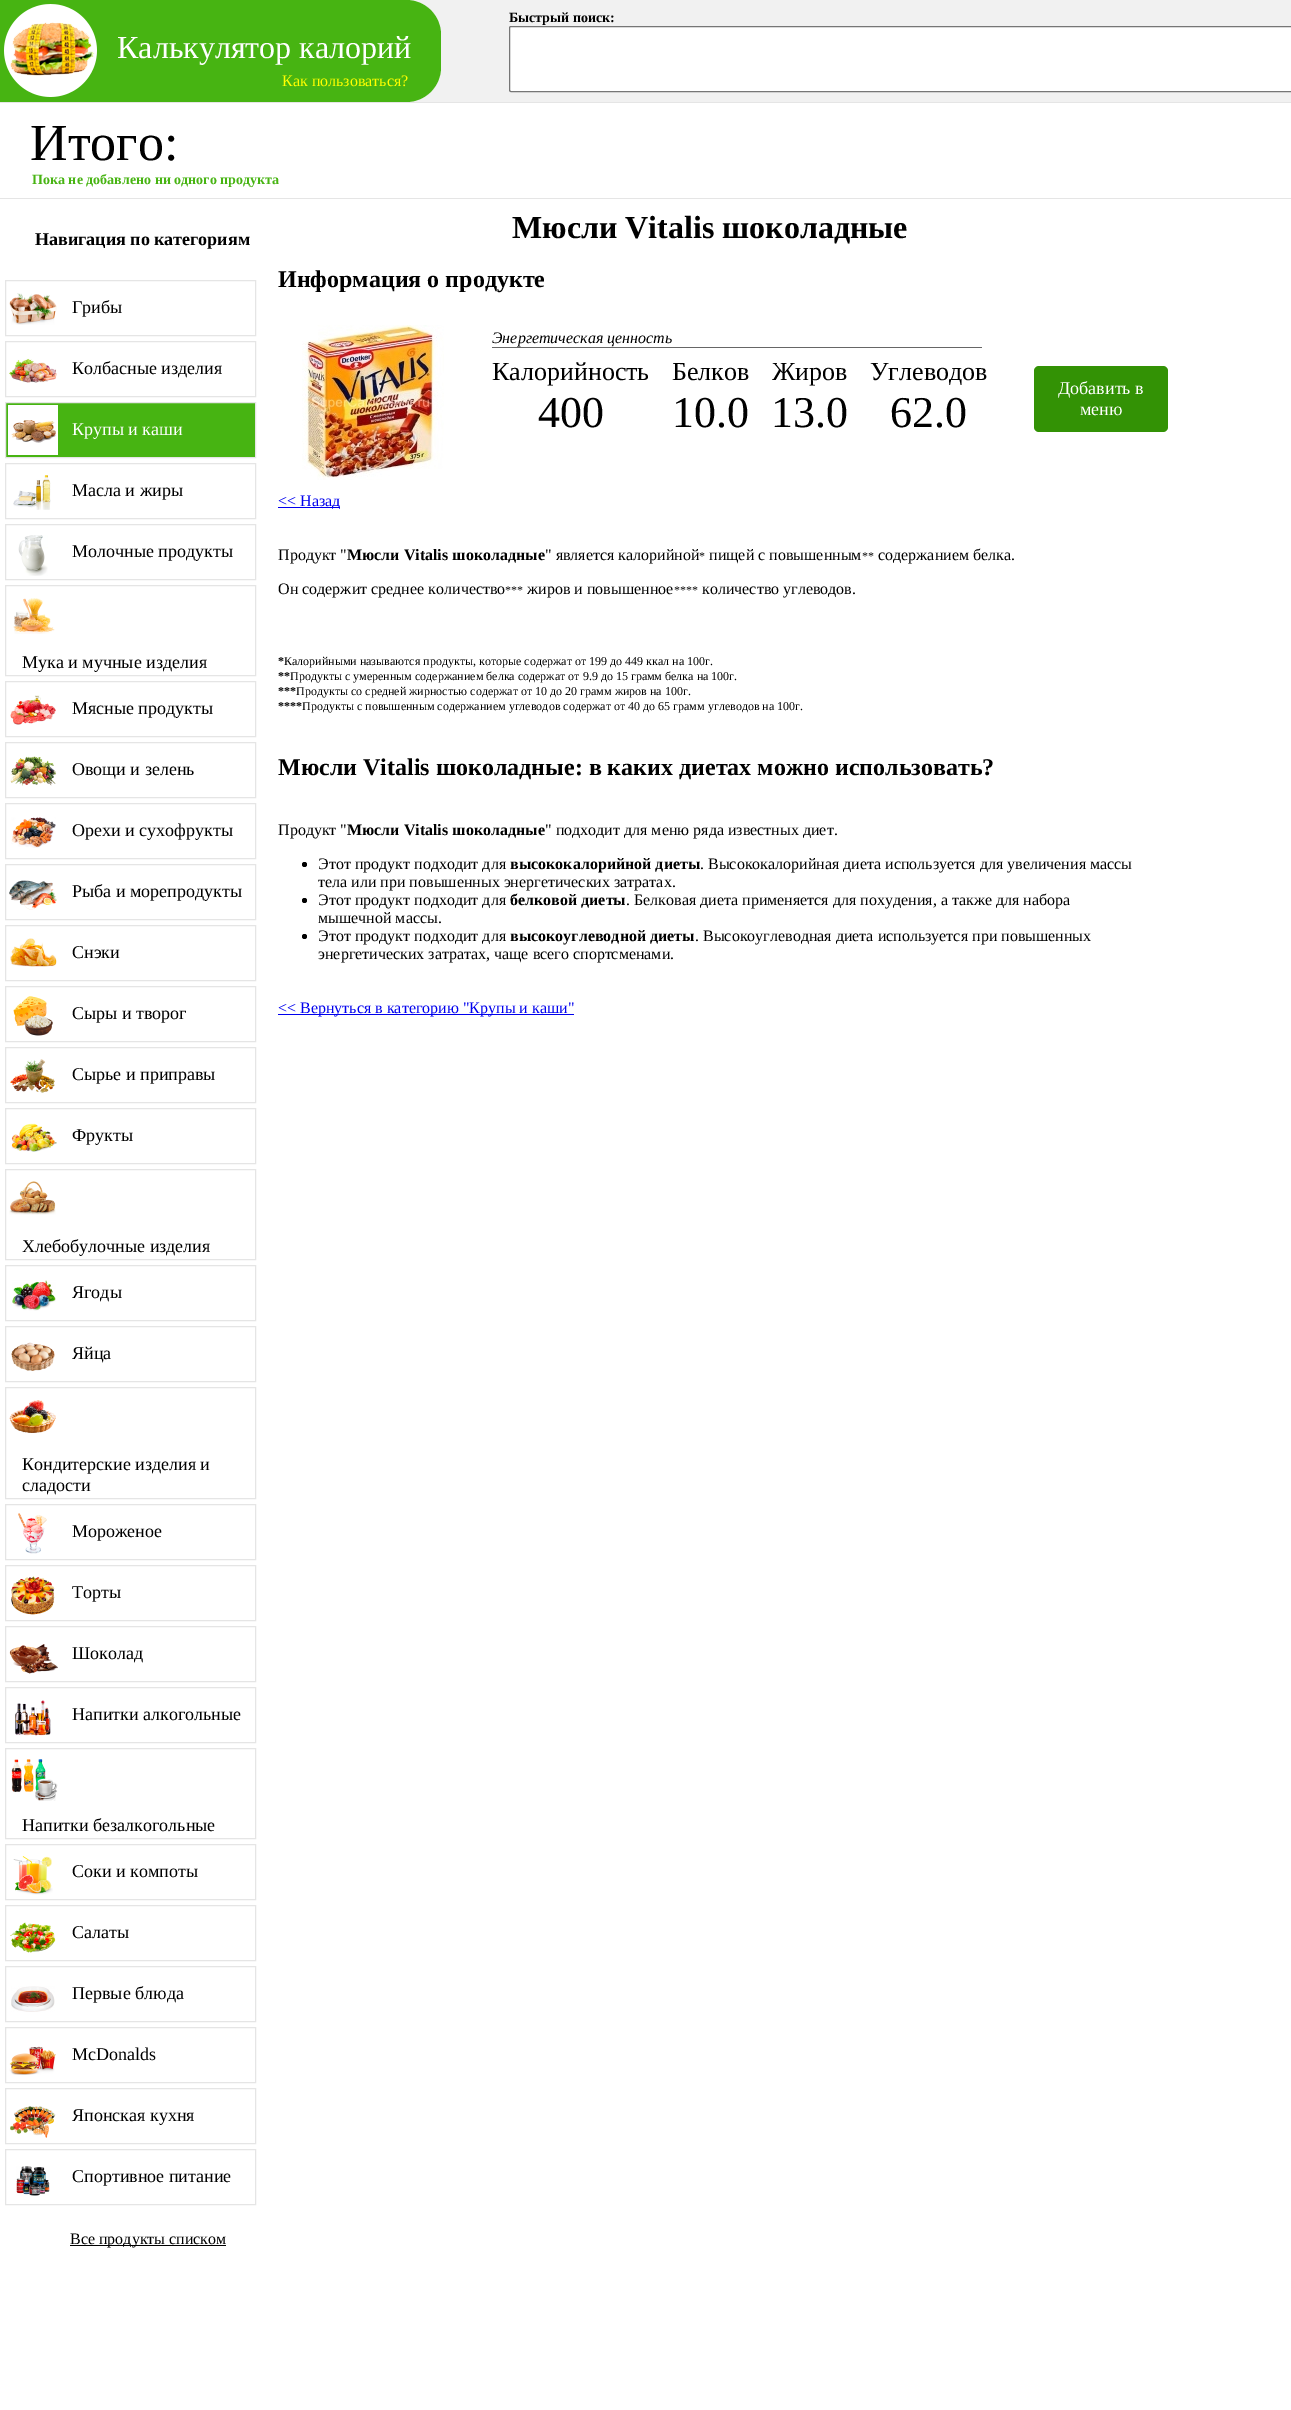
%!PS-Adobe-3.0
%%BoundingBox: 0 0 1291 2410
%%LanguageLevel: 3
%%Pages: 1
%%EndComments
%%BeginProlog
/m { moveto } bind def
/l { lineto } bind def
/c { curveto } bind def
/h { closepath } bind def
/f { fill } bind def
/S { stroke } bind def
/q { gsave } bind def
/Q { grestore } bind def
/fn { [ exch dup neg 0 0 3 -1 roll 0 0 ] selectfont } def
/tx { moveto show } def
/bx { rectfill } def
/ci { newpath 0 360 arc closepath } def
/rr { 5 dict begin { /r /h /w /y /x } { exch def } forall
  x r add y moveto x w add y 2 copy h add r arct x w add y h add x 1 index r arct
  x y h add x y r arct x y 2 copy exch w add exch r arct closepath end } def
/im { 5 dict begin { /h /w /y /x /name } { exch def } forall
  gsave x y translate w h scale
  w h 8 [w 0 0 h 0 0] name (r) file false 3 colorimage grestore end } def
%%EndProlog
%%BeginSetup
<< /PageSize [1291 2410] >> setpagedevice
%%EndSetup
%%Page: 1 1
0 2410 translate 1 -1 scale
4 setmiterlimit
1 setgray
0 0 1291 2410 bx
0.945 setgray
406 0 885 102 bx
/LiberationSerif-Bold 14 fn
0 setgray
(Быстрый поиск:) 509 22 tx
1 setgray
509.5 26.5 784 65 1.5 rr q f Q
0.463 setgray
S
0.898 setgray
0 198 1291 1 bx
/LiberationSerif-Regular 52 fn
0 setgray
(Итого:) 30 160 tx
/LiberationSerif-Bold 14 fn
0.278 0.706 0.071 setrgbcolor
(Пока не добавлено ни одного продукта) 32 184 tx
/LiberationSerif-Bold 18 fn
0 setgray
(Навигация по категориям) 35 245 tx
0.898 setgray
5.5 280.5 250 55 rectstroke
(image0.raw) 9 293 48 32 im
/LiberationSerif-Regular 18 fn
0 setgray
(Грибы) 72 313 tx
0.898 setgray
5.5 341.5 250 55 rectstroke
(image1.raw) 9 358 48 25 im
0 setgray
(Колбасные изделия) 72 374 tx
0.278 0.706 0.071 setrgbcolor
5.5 402.5 m 255.5 402.5 l 255.5 457.5 l 5.5 457.5 l h q f Q
0.898 setgray
S
(image2.raw) 8 405 50 50 im
1 setgray
(Крупы и каши) 72 435 tx
0.898 setgray
5.5 463.5 250 55 rectstroke
(image3.raw) 13 475 38 35 im
0 setgray
(Масла и жиры) 72 496 tx
0.898 setgray
5.5 524.5 250 55 rectstroke
(image4.raw) 18 535 30 41 im
0 setgray
(Молочные продукты) 72 557 tx
0.898 setgray
5.5 585.5 250 90 rectstroke
(image5.raw) 13 598 42 36 im
0 setgray
(Мука и мучные изделия) 22 668 tx
0.898 setgray
5.5 681.5 250 55 rectstroke
(image6.raw) 10 695 46 30 im
0 setgray
(Мясные продукты) 72 714 tx
0.898 setgray
5.5 742.5 250 55 rectstroke
(image7.raw) 10 756 47 30 im
0 setgray
(Овощи и зелень) 72 775 tx
0.898 setgray
5.5 803.5 250 55 rectstroke
(image8.raw) 11 817 45 31 im
0 setgray
(Орехи и сухофрукты) 72 836 tx
0.898 setgray
5.5 864.5 250 55 rectstroke
(image9.raw) 9 880 48 30 im
0 setgray
(Рыба и морепродукты) 72 897 tx
0.898 setgray
5.5 925.5 250 55 rectstroke
(image10.raw) 10 938 47 29 im
0 setgray
(Снэки) 72 958 tx
0.898 setgray
5.5 986.5 250 55 rectstroke
(image11.raw) 13 996 40 40 im
0 setgray
(Сыры и творог) 72 1019 tx
0.898 setgray
5.5 1047.5 250 55 rectstroke
(image12.raw) 10 1059 45 34 im
0 setgray
(Сырье и приправы) 72 1080 tx
0.898 setgray
5.5 1108.5 250 55 rectstroke
(image13.raw) 11 1123 46 29 im
0 setgray
(Фрукты) 72 1141 tx
0.898 setgray
5.5 1169.5 250 90 rectstroke
(image14.raw) 9 1181 47 34 im
0 setgray
(Хлебобулочные изделия) 22 1252 tx
0.898 setgray
5.5 1265.5 250 55 rectstroke
(image15.raw) 12 1280 44 31 im
0 setgray
(Ягоды) 72 1298 tx
0.898 setgray
5.5 1326.5 250 55 rectstroke
(image16.raw) 11 1342 44 29 im
0 setgray
(Яйца) 72 1359 tx
0.898 setgray
5.5 1387.5 250 111 rectstroke
(image17.raw) 9 1400 47 33 im
0 setgray
(Кондитерские изделия и) 22 1470 tx
(сладости) 22 1491 tx
0.898 setgray
5.5 1504.5 250 55 rectstroke
(image18.raw) 18 1513 29 41 im
0 setgray
(Мороженое) 72 1537 tx
0.898 setgray
5.5 1565.5 250 55 rectstroke
(image19.raw) 11 1576 44 39 im
0 setgray
(Торты) 72 1598 tx
0.898 setgray
5.5 1626.5 250 55 rectstroke
(image20.raw) 9 1644 49 30 im
0 setgray
(Шоколад) 72 1659 tx
0.898 setgray
5.5 1687.5 250 55 rectstroke
(image21.raw) 15 1700 36 36 im
0 setgray
(Напитки алкогольные) 72 1720 tx
0.898 setgray
5.5 1748.5 250 90 rectstroke
(image22.raw) 11 1759 47 42 im
0 setgray
(Напитки безалкогольные) 22 1831 tx
0.898 setgray
5.5 1844.5 250 55 rectstroke
(image23.raw) 13 1856 40 39 im
0 setgray
(Соки и компоты) 72 1877 tx
0.898 setgray
5.5 1905.5 250 55 rectstroke
(image24.raw) 10 1922 46 31 im
0 setgray
(Салаты) 72 1938 tx
0.898 setgray
5.5 1966.5 250 55 rectstroke
(image25.raw) 11 1986 44 26 im
0 setgray
(Первые блюда) 72 1999 tx
0.898 setgray
5.5 2027.5 250 55 rectstroke
(image26.raw) 9 2046 47 29 im
0 setgray
(McDonalds) 72 2060 tx
0.898 setgray
5.5 2088.5 250 55 rectstroke
(image27.raw) 10 2106 46 32 im
0 setgray
(Японская кухня) 72 2121 tx
0.898 setgray
5.5 2149.5 250 55 rectstroke
(image28.raw) 16 2166 34 30 im
0 setgray
(Спортивное питание) 72 2182 tx
70 2245 156 1 bx
/LiberationSerif-Regular 16 fn
(Все продукты списком) 70 2244 tx
/LiberationSerif-Bold 32 fn
(Мюсли Vitalis шоколадные) 512 238 tx
/LiberationSerif-Bold 24 fn
(Информация о продукте) 278 287 tx
(image29.raw) 302 325 142 155 im
0.4 setgray
492 347 490 1 bx
/LiberationSerif-Italic 16 fn
0 setgray
(Энергетическая ценность) 492 343 tx
/LiberationSerif-Regular 26 fn
(Калорийность) 492 380 tx
/LiberationSerif-Regular 44 fn
(400) 538 427 tx
/LiberationSerif-Regular 26 fn
(Белков) 672 380 tx
/LiberationSerif-Regular 44 fn
(10.0) 672 427 tx
/LiberationSerif-Regular 26 fn
(Жиров) 772 380 tx
/LiberationSerif-Regular 44 fn
(13.0) 771 427 tx
/LiberationSerif-Regular 26 fn
(Углеводов) 870 380 tx
/LiberationSerif-Regular 44 fn
(62.0) 890 427 tx
0.2 0.573 0.02 setrgbcolor
1034 366 134 66 5 rr f
/LiberationSerif-Regular 18 fn
1 setgray
(Добавить в) 1058 394 tx
(меню) 1080 415 tx
0 0 0.933 setrgbcolor
278 507 62 1 bx
/LiberationSerif-Regular 16 fn
(<< Назад) 278 506 tx
0 setgray
(Продукт ") 278 560 tx
/LiberationSerif-Bold 16 fn
(Мюсли Vitalis шоколадные) 347 560 tx
/LiberationSerif-Regular 16 fn
(" является калорийной) 545 560 tx
/LiberationSerif-Regular 12 fn
(*) 699 560 tx
/LiberationSerif-Regular 16 fn
(пищей с повышенным) 709 560 tx
/LiberationSerif-Regular 12 fn
(**) 862 560 tx
/LiberationSerif-Regular 16 fn
(содержанием белка.) 878 560 tx
(Он содержит среднее количество) 278 594 tx
/LiberationSerif-Regular 12 fn
(***) 505 594 tx
/LiberationSerif-Regular 16 fn
(жиров и повышенное) 527 594 tx
/LiberationSerif-Regular 12 fn
(****) 674 594 tx
/LiberationSerif-Regular 16 fn
(количество углеводов.) 702 594 tx
/LiberationSerif-Bold 12 fn
(*) 278 665 tx
/LiberationSerif-Regular 12 fn
(Калорийными называются продукты, которые содержат от 199 до 449 ккал на 100г.) 284 665 tx
/LiberationSerif-Bold 12 fn
(**) 278 680 tx
/LiberationSerif-Regular 12 fn
(Продукты с умеренным содержанием белка содержат от 9.9 до 15 грамм белка на 100г.) 290 680 tx
/LiberationSerif-Bold 12 fn
(***) 278 695 tx
/LiberationSerif-Regular 12 fn
(Продукты со средней жирностью содержат от 10 до 20 грамм жиров на 100г.) 296 695 tx
/LiberationSerif-Bold 12 fn
(****) 278 710 tx
/LiberationSerif-Regular 12 fn
(Продукты с повышенным содержанием углеводов содержат от 40 до 65 грамм углеводов на 100г.) 302 710 tx
/LiberationSerif-Bold 24 fn
(Мюсли Vitalis шоколадные: в каких диетах можно использовать?) 278 775 tx
/LiberationSerif-Regular 16 fn
(Продукт ") 278 835 tx
/LiberationSerif-Bold 16 fn
(Мюсли Vitalis шоколадные) 347 835 tx
/LiberationSerif-Regular 16 fn
(" подходит для меню ряда известных диет.) 545 835 tx
304.5 864.5 2.5 ci f
(Этот продукт подходит для) 318 869 tx
/LiberationSerif-Bold 16 fn
(высококалорийной диеты) 510 869 tx
/LiberationSerif-Regular 16 fn
(. Высококалорийная диета используется для увеличения массы) 700 869 tx
(тела или при повышенных энергетических затратах.) 318 887 tx
304.5 900.5 2.5 ci f
(Этот продукт подходит для) 318 905 tx
/LiberationSerif-Bold 16 fn
(белковой диеты) 510 905 tx
/LiberationSerif-Regular 16 fn
(. Белковая диета применяется для похудения, а также для набора) 626 905 tx
(мышечной массы.) 318 923 tx
304.5 936.5 2.5 ci f
(Этот продукт подходит для) 318 941 tx
/LiberationSerif-Bold 16 fn
(высокоуглеводной диеты) 510 941 tx
/LiberationSerif-Regular 16 fn
(. Высокоуглеводная диета используется при повышенных) 695 941 tx
(энергетических затратах, чаще всего спортсменами.) 318 959 tx
0 0 0.933 setrgbcolor
278 1014 296 1 bx
(<< Вернуться в категорию "Крупы и каши") 278 1013 tx
0.898 setgray
0 102 1291 1 bx
0.278 0.706 0.071 setrgbcolor
0 0 m 406 0 l 425.5 0 441 15.5 441 35 c 441 67 l 441 86.5 425.5 102 406 102 c 0 102 l h f
(image30.raw) 4 4 93 93 im
/LiberationSerif-Regular 32 fn
1 setgray
(Калькулятор калорий) 117 58 tx
/LiberationSerif-Regular 16 fn
1 1 0 setrgbcolor
(Как пользоваться?) 282 86 tx
showpage
%%EOF
